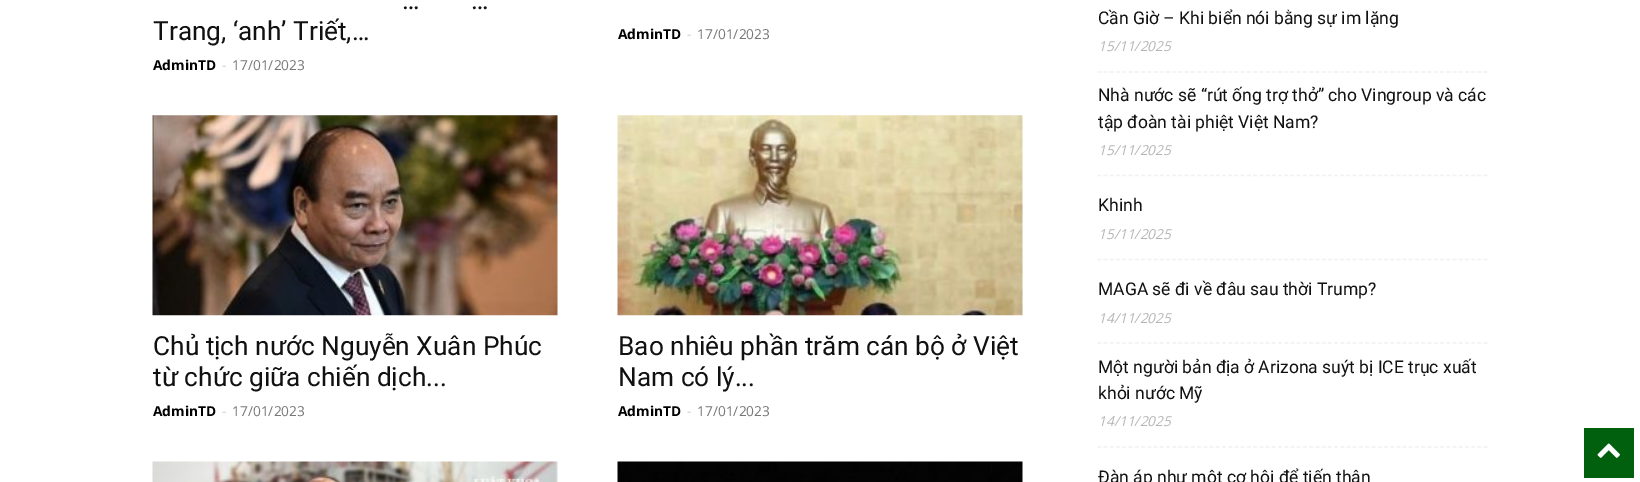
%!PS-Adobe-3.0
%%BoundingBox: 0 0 1640 482
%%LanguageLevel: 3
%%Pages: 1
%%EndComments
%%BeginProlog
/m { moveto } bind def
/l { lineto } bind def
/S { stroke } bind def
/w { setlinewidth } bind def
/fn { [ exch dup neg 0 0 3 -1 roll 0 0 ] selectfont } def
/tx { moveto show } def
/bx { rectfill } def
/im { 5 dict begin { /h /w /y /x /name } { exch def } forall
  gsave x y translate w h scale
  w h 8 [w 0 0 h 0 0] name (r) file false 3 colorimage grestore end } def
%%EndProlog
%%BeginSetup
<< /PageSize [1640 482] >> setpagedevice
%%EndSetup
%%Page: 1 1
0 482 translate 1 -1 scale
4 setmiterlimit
1 setgray
0 0 1640 482 bx
/Roboto-Regular 26.25 fn
0.067 setgray
(…) 402 9 tx
(…) 471 9 tx
(Trang, ‘anh’ Triết,…) 153 40 tx
/OpenSans-Bold 13.75 fn
0 setgray
(AdminTD) 153 70 tx
/OpenSans-Regular 13.75 fn
0.8 setgray
(-) 222 70 tx
0.463 setgray
(17/01/2023) 232 70 tx
/OpenSans-Bold 13.75 fn
0 setgray
(AdminTD) 618 39 tx
/OpenSans-Regular 13.75 fn
0.8 setgray
(-) 687 39 tx
0.463 setgray
(17/01/2023) 697 39 tx
(image0.raw) 152 115 406 201 im
/Roboto-Regular 26.25 fn
0.067 setgray
(Chủ tịch nước Nguyễn Xuân Phúc) 153 355 tx
(từ chức giữa chiến dịch...) 153 386 tx
/OpenSans-Bold 13.75 fn
0 setgray
(AdminTD) 153 416 tx
/OpenSans-Regular 13.75 fn
0.8 setgray
(-) 222 416 tx
0.463 setgray
(17/01/2023) 232 416 tx
(image1.raw) 617 115 406 201 im
/Roboto-Regular 26.25 fn
0.067 setgray
(Bao nhiêu phần trăm cán bộ ở Việt) 618 355 tx
(Nam có lý...) 618 386 tx
/OpenSans-Bold 13.75 fn
0 setgray
(AdminTD) 618 416 tx
/OpenSans-Regular 13.75 fn
0.8 setgray
(-) 687 416 tx
0.463 setgray
(17/01/2023) 697 416 tx
(image2.raw) 152 461 406 21 im
(image3.raw) 617 461 406 21 im
0.945 setgray
1.2 w
[3.75 2.48] 0 setdash
1097.5 72 m 1487.5 72 l S
/Roboto-Regular 17.5 fn
0.067 setgray
(Cần Giờ – Khi biển nói bằng sự im lặng) 1098 24 tx
/OpenSans-Italic 13.75 fn
0.71 setgray
(15/11/2025) 1098 51 tx
0.945 setgray
1097.5 175.5 m 1487.5 175.5 l S
/Roboto-Regular 17.5 fn
0.067 setgray
(Nhà nước sẽ “rút ống trợ thở” cho Vingroup và các) 1098 101 tx
(tập đoàn tài phiệt Việt Nam?) 1098 128 tx
/OpenSans-Italic 13.75 fn
0.71 setgray
(15/11/2025) 1098 155 tx
0.945 setgray
1097.5 259.5 m 1487.5 259.5 l S
/Roboto-Regular 17.5 fn
0.067 setgray
(Khinh) 1098 211 tx
/OpenSans-Italic 13.75 fn
0.71 setgray
(15/11/2025) 1098 239 tx
0.945 setgray
1097.5 343 m 1487.5 343 l S
/Roboto-Regular 17.5 fn
0.067 setgray
(MAGA sẽ đi về đâu sau thời Trump?) 1098 295 tx
/OpenSans-Italic 13.75 fn
0.71 setgray
(14/11/2025) 1098 323 tx
0.945 setgray
1097.5 447 m 1487.5 447 l S
/Roboto-Regular 17.5 fn
0.067 setgray
(Một người bản địa ở Arizona suýt bị ICE trục xuất) 1098 373 tx
(khỏi nước Mỹ) 1098 399 tx
/OpenSans-Italic 13.75 fn
0.71 setgray
(14/11/2025) 1098 426 tx
/Roboto-Regular 17.5 fn
0.067 setgray
(Đàn áp như một cơ hội để tiến thân) 1098 483 tx
0.004 0.376 0.055 setrgbcolor
1584 428 50 50 bx
(image4.raw) 1597 443 23 15 im
showpage
%%EOF
